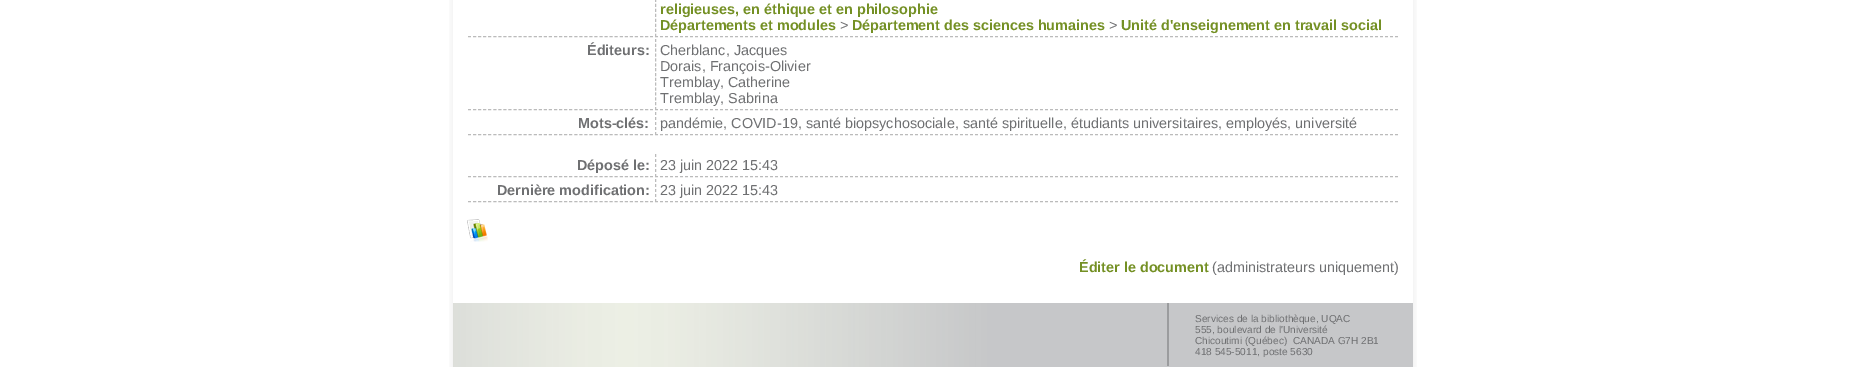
%!PS-Adobe-3.0
%%BoundingBox: 0 0 1865 367
%%LanguageLevel: 3
%%Pages: 1
%%EndComments
%%BeginProlog
/m { moveto } bind def
/l { lineto } bind def
/S { stroke } bind def
/fn { [ exch dup neg 0 0 3 -1 roll 0 0 ] selectfont } def
/tx { moveto show } def
/bx { rectfill } def
/im { 5 dict begin { /h /w /y /x /name } { exch def } forall
  gsave x y translate w h scale
  w h 8 [w 0 0 h 0 0] name (r) file false 3 colorimage grestore end } def
%%EndProlog
%%BeginSetup
<< /PageSize [1865 367] >> setpagedevice
%%EndSetup
%%Page: 1 1
0 367 translate 1 -1 scale
4 setmiterlimit
1 setgray
0 0 1865 367 bx
(image0.raw) 449 0 968 367 im
0.733 setgray
[3 2] 0 setdash
655 36.5 m 1398 36.5 l S
655.5 -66 m 655.5 37 l S
/LiberationSans-Bold 14.4 fn
0.455 0.565 0.141 setrgbcolor
(religieuses, en éthique et en philosophie) 660 14 tx
(Départements et modules) 660 30 tx
/LiberationSans-Regular 14.4 fn
0.435 0.439 0.447 setrgbcolor
(>) 840 30 tx
/LiberationSans-Bold 14.4 fn
0.455 0.565 0.141 setrgbcolor
(Département des sciences humaines) 852 30 tx
/LiberationSans-Regular 14.4 fn
0.435 0.439 0.447 setrgbcolor
(>) 1109 30 tx
/LiberationSans-Bold 14.4 fn
0.455 0.565 0.141 setrgbcolor
(Unité d'enseignement en travail social) 1121 30 tx
0.733 setgray
[3 2.06] 0 setdash
468 36.5 m 653 36.5 l S
468 109.5 m 653 109.5 l S
0.435 0.439 0.447 setrgbcolor
(Éditeurs:) 587 55 tx
0.733 setgray
[3 2] 0 setdash
655 109.5 m 1398 109.5 l S
[3 1.86] 0 setdash
655.5 39 m 655.5 110 l S
/LiberationSans-Regular 14.4 fn
0.435 0.439 0.447 setrgbcolor
(Cherblanc, Jacques) 660 55 tx
(Dorais, François-Olivier) 660 71 tx
(Tremblay, Catherine) 660 87 tx
(Tremblay, Sabrina) 660 103 tx
0.733 setgray
[3 2.06] 0 setdash
468 134.5 m 653 134.5 l S
/LiberationSans-Bold 14.4 fn
0.435 0.439 0.447 setrgbcolor
(Mots-clés:) 578 128 tx
0.733 setgray
[3 2] 0 setdash
655 134.5 m 1398 134.5 l S
655.5 112 m 655.5 135 l S
/LiberationSans-Regular 14.4 fn
0.435 0.439 0.447 setrgbcolor
(pandémie, COVID-19, santé biopsychosociale, santé spirituelle, étudiants universitaires, employés, université) 660 128 tx
0.733 setgray
[3 2.06] 0 setdash
468 176.5 m 653 176.5 l S
/LiberationSans-Bold 14.4 fn
0.435 0.439 0.447 setrgbcolor
(Déposé le:) 577 170 tx
0.733 setgray
[3 2] 0 setdash
655 176.5 m 1398 176.5 l S
655.5 154 m 655.5 177 l S
/LiberationSans-Regular 14.4 fn
0.435 0.439 0.447 setrgbcolor
(23 juin 2022 15:43) 660 170 tx
0.733 setgray
[3 2.06] 0 setdash
468 201.5 m 653 201.5 l S
/LiberationSans-Bold 14.4 fn
0.435 0.439 0.447 setrgbcolor
(Dernière modification:) 497 195 tx
0.733 setgray
[3 2] 0 setdash
655 201.5 m 1398 201.5 l S
655.5 179 m 655.5 202 l S
/LiberationSans-Regular 14.4 fn
0.435 0.439 0.447 setrgbcolor
(23 juin 2022 15:43) 660 195 tx
(image1.raw) 467 219 21 23 im
/LiberationSans-Bold 14.4 fn
0.455 0.565 0.141 setrgbcolor
(Éditer le document) 1079 272 tx
/LiberationSans-Regular 14.4 fn
0.435 0.439 0.447 setrgbcolor
(\(administrateurs uniquement\)) 1212 272 tx
(image2.raw) 453 303 960 64 im
0.608 0.612 0.62 setrgbcolor
1167 303 2 63 bx
/LiberationSans-Regular 10.1 fn
0.435 0.439 0.447 setrgbcolor
(Services de la bibliothèque, UQAC) 1195 322 tx
(555, boulevard de l'Université) 1195 333 tx
(Chicoutimi \(Québec\)  CANADA G7H 2B1) 1195 344 tx
(418 545-5011, poste 5630) 1195 355 tx
showpage
%%EOF
